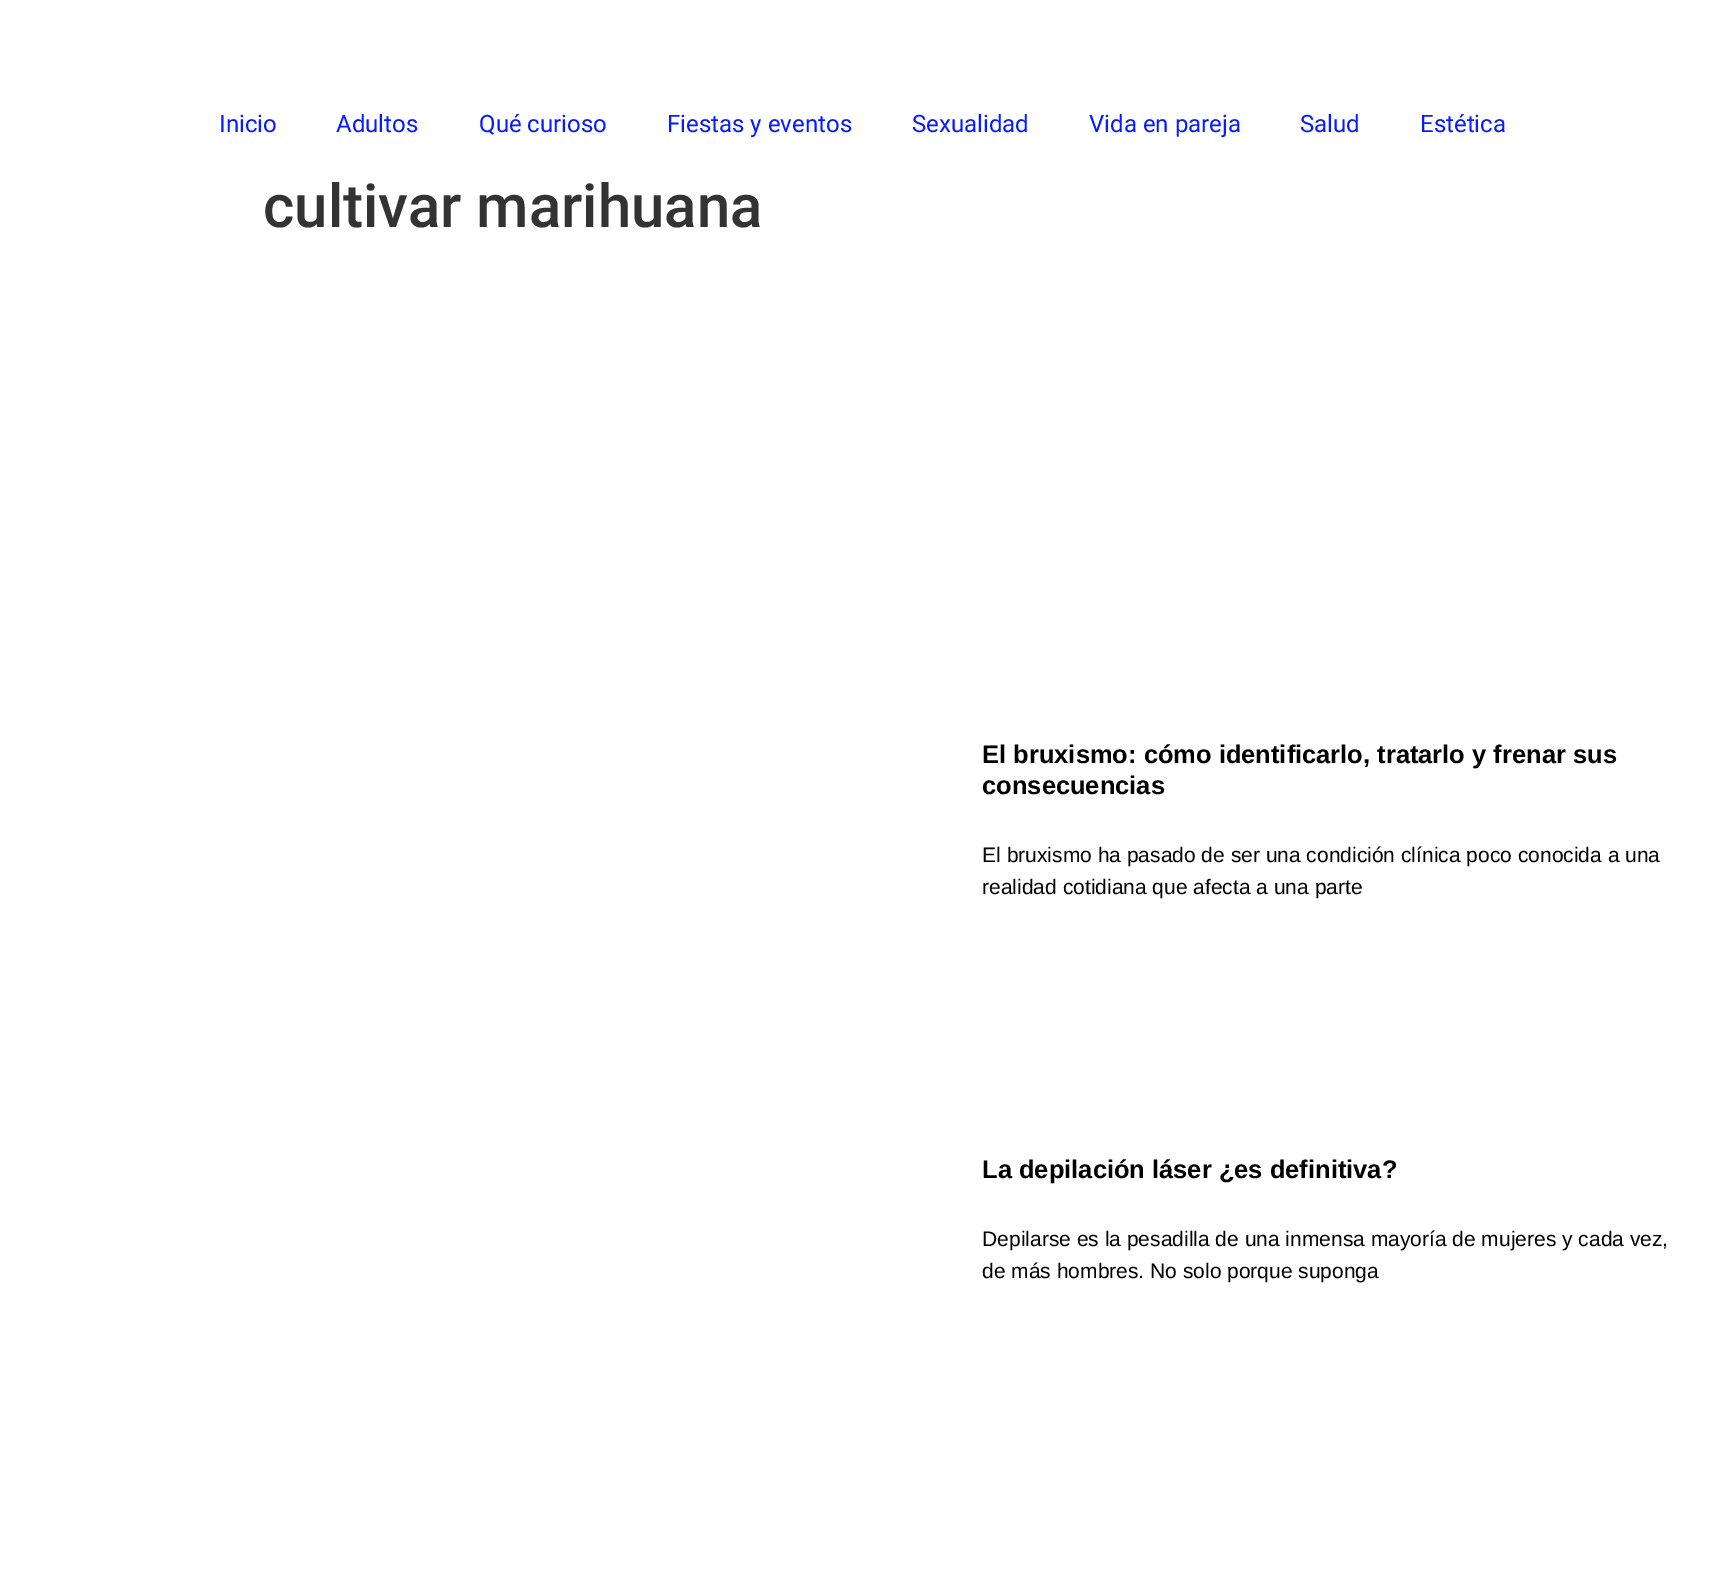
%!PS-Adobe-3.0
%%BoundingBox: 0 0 1725 1569
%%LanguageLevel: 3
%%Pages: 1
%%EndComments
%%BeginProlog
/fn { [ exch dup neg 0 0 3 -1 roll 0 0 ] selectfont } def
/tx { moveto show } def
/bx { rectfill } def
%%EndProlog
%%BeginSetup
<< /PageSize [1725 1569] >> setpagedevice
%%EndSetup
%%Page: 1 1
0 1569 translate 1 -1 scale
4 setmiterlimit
1 setgray
0 0 1725 1569 bx
/Roboto-Regular 24 fn
0.024 0.106 1 setrgbcolor
(Inicio) 219 132 tx
(Adultos) 336 132 tx
(Qué curioso) 479 132 tx
(Fiestas y eventos) 667 132 tx
(Sexualidad) 912 132 tx
(Vida en pareja) 1089 132 tx
(Salud) 1300 132 tx
(Estética) 1420 132 tx
/Roboto-Medium 60 fn
0.2 setgray
(cultivar marihuana) 263 227 tx
/LiberationSans-Bold 25.5 fn
0 setgray
(El bruxismo: cómo identificarlo, tratarlo y frenar sus) 982 763 tx
(consecuencias) 982 794 tx
/LiberationSans-Regular 21 fn
(El bruxismo ha pasado de ser una condición clínica poco conocida a una) 982 862 tx
(realidad cotidiana que afecta a una parte) 982 894 tx
/LiberationSans-Bold 25.5 fn
(La depilación láser ¿es definitiva?) 982 1178 tx
/LiberationSans-Regular 21 fn
(Depilarse es la pesadilla de una inmensa mayoría de mujeres y cada vez,) 982 1246 tx
(de más hombres. No solo porque suponga) 982 1278 tx
showpage
%%EOF
